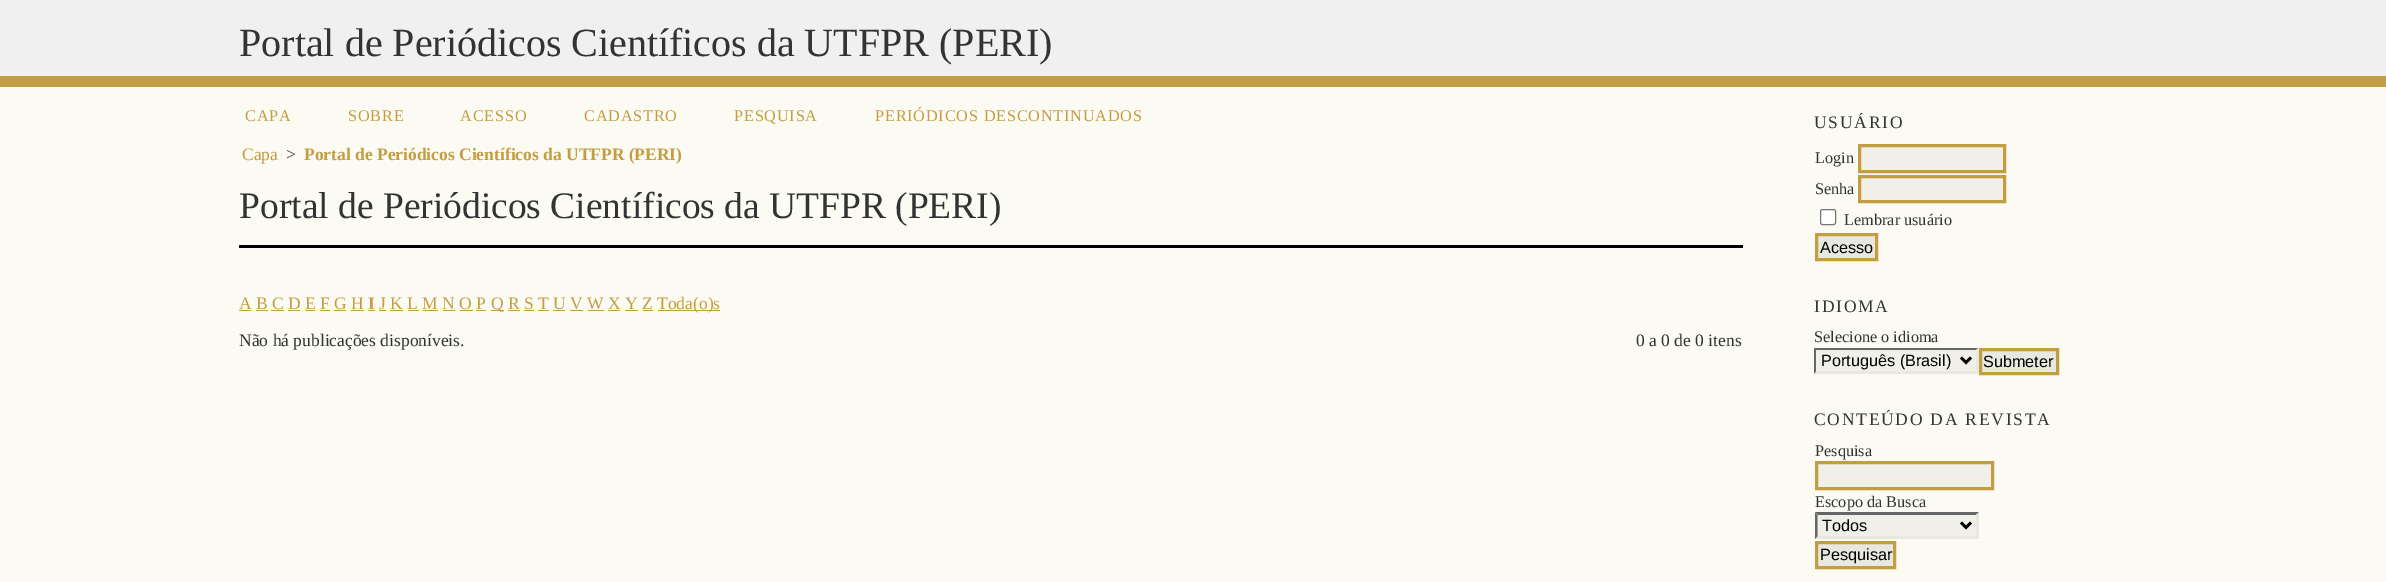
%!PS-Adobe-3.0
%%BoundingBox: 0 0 2386 582
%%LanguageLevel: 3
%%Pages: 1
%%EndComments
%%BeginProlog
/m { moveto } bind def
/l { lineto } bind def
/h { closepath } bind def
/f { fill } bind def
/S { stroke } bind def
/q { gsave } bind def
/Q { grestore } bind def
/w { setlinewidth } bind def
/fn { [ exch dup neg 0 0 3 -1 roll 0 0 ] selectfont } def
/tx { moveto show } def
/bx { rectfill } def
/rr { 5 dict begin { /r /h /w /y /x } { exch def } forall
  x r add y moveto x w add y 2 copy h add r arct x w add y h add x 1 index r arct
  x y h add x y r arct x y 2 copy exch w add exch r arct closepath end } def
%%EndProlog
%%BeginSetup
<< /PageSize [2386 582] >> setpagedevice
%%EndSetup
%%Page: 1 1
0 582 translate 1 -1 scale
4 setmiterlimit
0.984 0.984 0.953 setrgbcolor
0 0 2386 582 bx
0.941 setgray
0 0 2386 76 bx
/LiberationSerif-Regular 40 fn
0.2 setgray
(Portal de Periódicos Científicos da UTFPR \(PERI\)) 239 56 tx
0.765 0.616 0.259 setrgbcolor
0 76 2386 11 bx
/LiberationSerif-Regular 16.25 fn
245 121 m 0.8 0 (CAPA) ashow
348 121 m 0.8 0 (SOBRE) ashow
460 121 m 0.8 0 (ACESSO) ashow
584 121 m 0.8 0 (CADASTRO) ashow
734 121 m 0.8 0 (PESQUISA) ashow
875 121 m 0.8 0 (PERIÓDICOS DESCONTINUADOS) ashow
/LiberationSerif-Regular 17.5 fn
(Capa) 242 160 tx
0.2 setgray
(>) 286 160 tx
/LiberationSerif-Bold 17.5 fn
0.765 0.616 0.259 setrgbcolor
(Portal de Periódicos Científicos da UTFPR \(PERI\)) 304 160 tx
/LiberationSerif-Regular 37.5 fn
0.2 setgray
(Portal de Periódicos Científicos da UTFPR \(PERI\)) 239 218 tx
0 setgray
239 245 1504 3 bx
/LiberationSerif-Regular 17.5 fn
0.765 0.616 0.259 setrgbcolor
(A B C D E F G H) 239 309 tx
239 310 12 1 bx
/LiberationSerif-Bold 17.5 fn
(I) 368 309 tx
368 310 7 1 bx
/LiberationSerif-Regular 17.5 fn
(J K L M N O P) 379 309 tx
379 310 7 1 bx
491 310 13 1 bx
(Q R S T U V W X Y Z) 491 309 tx
658 310 62 1 bx
(Toda\(o\)s) 657 309 tx
256 310 12 1 bx
271 310 13 1 bx
288 310 12 1 bx
305 310 10 1 bx
320 310 10 1 bx
334 310 12 1 bx
351 310 13 1 bx
390 310 13 1 bx
408 310 11 1 bx
423 310 15 1 bx
443 310 12 1 bx
460 310 13 1 bx
476 310 10 1 bx
508 310 12 1 bx
524 310 10 1 bx
538 310 11 1 bx
553 310 12 1 bx
570 310 13 1 bx
588 310 16 1 bx
608 310 12 1 bx
625 310 13 1 bx
643 310 10 1 bx
0.2 setgray
(Não há publicações disponíveis.) 239 346 tx
(0 a 0 de 0 itens) 1636 346 tx
1814 128 m 1.75 0 (USUÁRIO) ashow
/LiberationSerif-Regular 16.25 fn
(Login) 1815 163 tx
0.941 0.941 0.91 setrgbcolor
1859.5 145.5 m 2004.5 145.5 l 2004.5 171.5 l 1859.5 171.5 l h q f Q
0.765 0.616 0.259 setrgbcolor
3 w
S
0.2 setgray
(Senha) 1815 194 tx
0.941 0.941 0.91 setrgbcolor
1859.5 176.5 m 2004.5 176.5 l 2004.5 201.5 l 1859.5 201.5 l h q f Q
0.765 0.616 0.259 setrgbcolor
S
1 setgray
1820.5 209.5 15 15 2 rr q f Q
0.463 setgray
1 w
S
0.2 setgray
(Lembrar usuário) 1844 225 tx
0.91 0.91 0.882 setrgbcolor
1816.5 234.5 m 1876.5 234.5 l 1876.5 259.5 l 1816.5 259.5 l h q f Q
0.765 0.616 0.259 setrgbcolor
3 w
S
/LiberationSans-Regular 16.25 fn
0 setgray
(Acesso) 1820 253 tx
/LiberationSerif-Regular 17.5 fn
0.2 setgray
1814 312 m 1.75 0 (IDIOMA) ashow
/LiberationSerif-Regular 16.25 fn
(Selecione o idioma) 1814 342 tx
0.941 0.941 0.91 setrgbcolor
1814 348 165 26 bx
0.4 setgray
1814 348 m 1979 348 l 1976 350 l 1816 350 l h f
0.91 0.91 0.882 setrgbcolor
1979 347.5 m 1979 374 l 1976 371 l 1976 350 l h f
1979 374 m 1814 374 l 1816 371 l 1976 371 l h f
0.4 setgray
1814 374 m 1814 347.5 l 1816 350 l 1816 371 l h f
0 setgray
2.5 w
1961 357.5 m 1966 362.5 l 1971 357.5 l S
/LiberationSans-Regular 16.25 fn
(Português \(Brasil\)) 1821 366 tx
0.91 0.91 0.882 setrgbcolor
1980.5 349.5 m 2057.5 349.5 l 2057.5 373.5 l 1980.5 373.5 l h q f Q
0.765 0.616 0.259 setrgbcolor
3 w
S
0 setgray
(Submeter) 1983 367 tx
/LiberationSerif-Regular 17.5 fn
0.2 setgray
1814 425 m 1.75 0 (CONTEÚDO DA REVISTA) ashow
/LiberationSerif-Regular 16.25 fn
(Pesquisa) 1815 456 tx
0.941 0.941 0.91 setrgbcolor
1816.5 462.5 m 1992.5 462.5 l 1992.5 488.5 l 1816.5 488.5 l h q f Q
0.765 0.616 0.259 setrgbcolor
S
0.2 setgray
(Escopo da Busca) 1815 507 tx
0.941 0.941 0.91 setrgbcolor
1815 513 164 26 bx
0.4 setgray
1815 512 m 1979 512 l 1976 515 l 1818 515 l h f
0.91 0.91 0.882 setrgbcolor
1979 512.5 m 1979 539 l 1976 536 l 1976 515 l h f
1979 539 m 1815 539 l 1818 536 l 1976 536 l h f
0.4 setgray
1815 539 m 1815 512.5 l 1817.5 515 l 1817.5 536 l h f
0 setgray
2.5 w
1961 522.5 m 1966 527.5 l 1971 522.5 l S
/LiberationSans-Regular 16.25 fn
(Todos) 1822 531 tx
0.91 0.91 0.882 setrgbcolor
1816.5 542.5 m 1894.5 542.5 l 1894.5 567.5 l 1816.5 567.5 l h q f Q
0.765 0.616 0.259 setrgbcolor
3 w
S
0 setgray
(Pesquisar) 1820 560 tx
showpage
%%EOF
